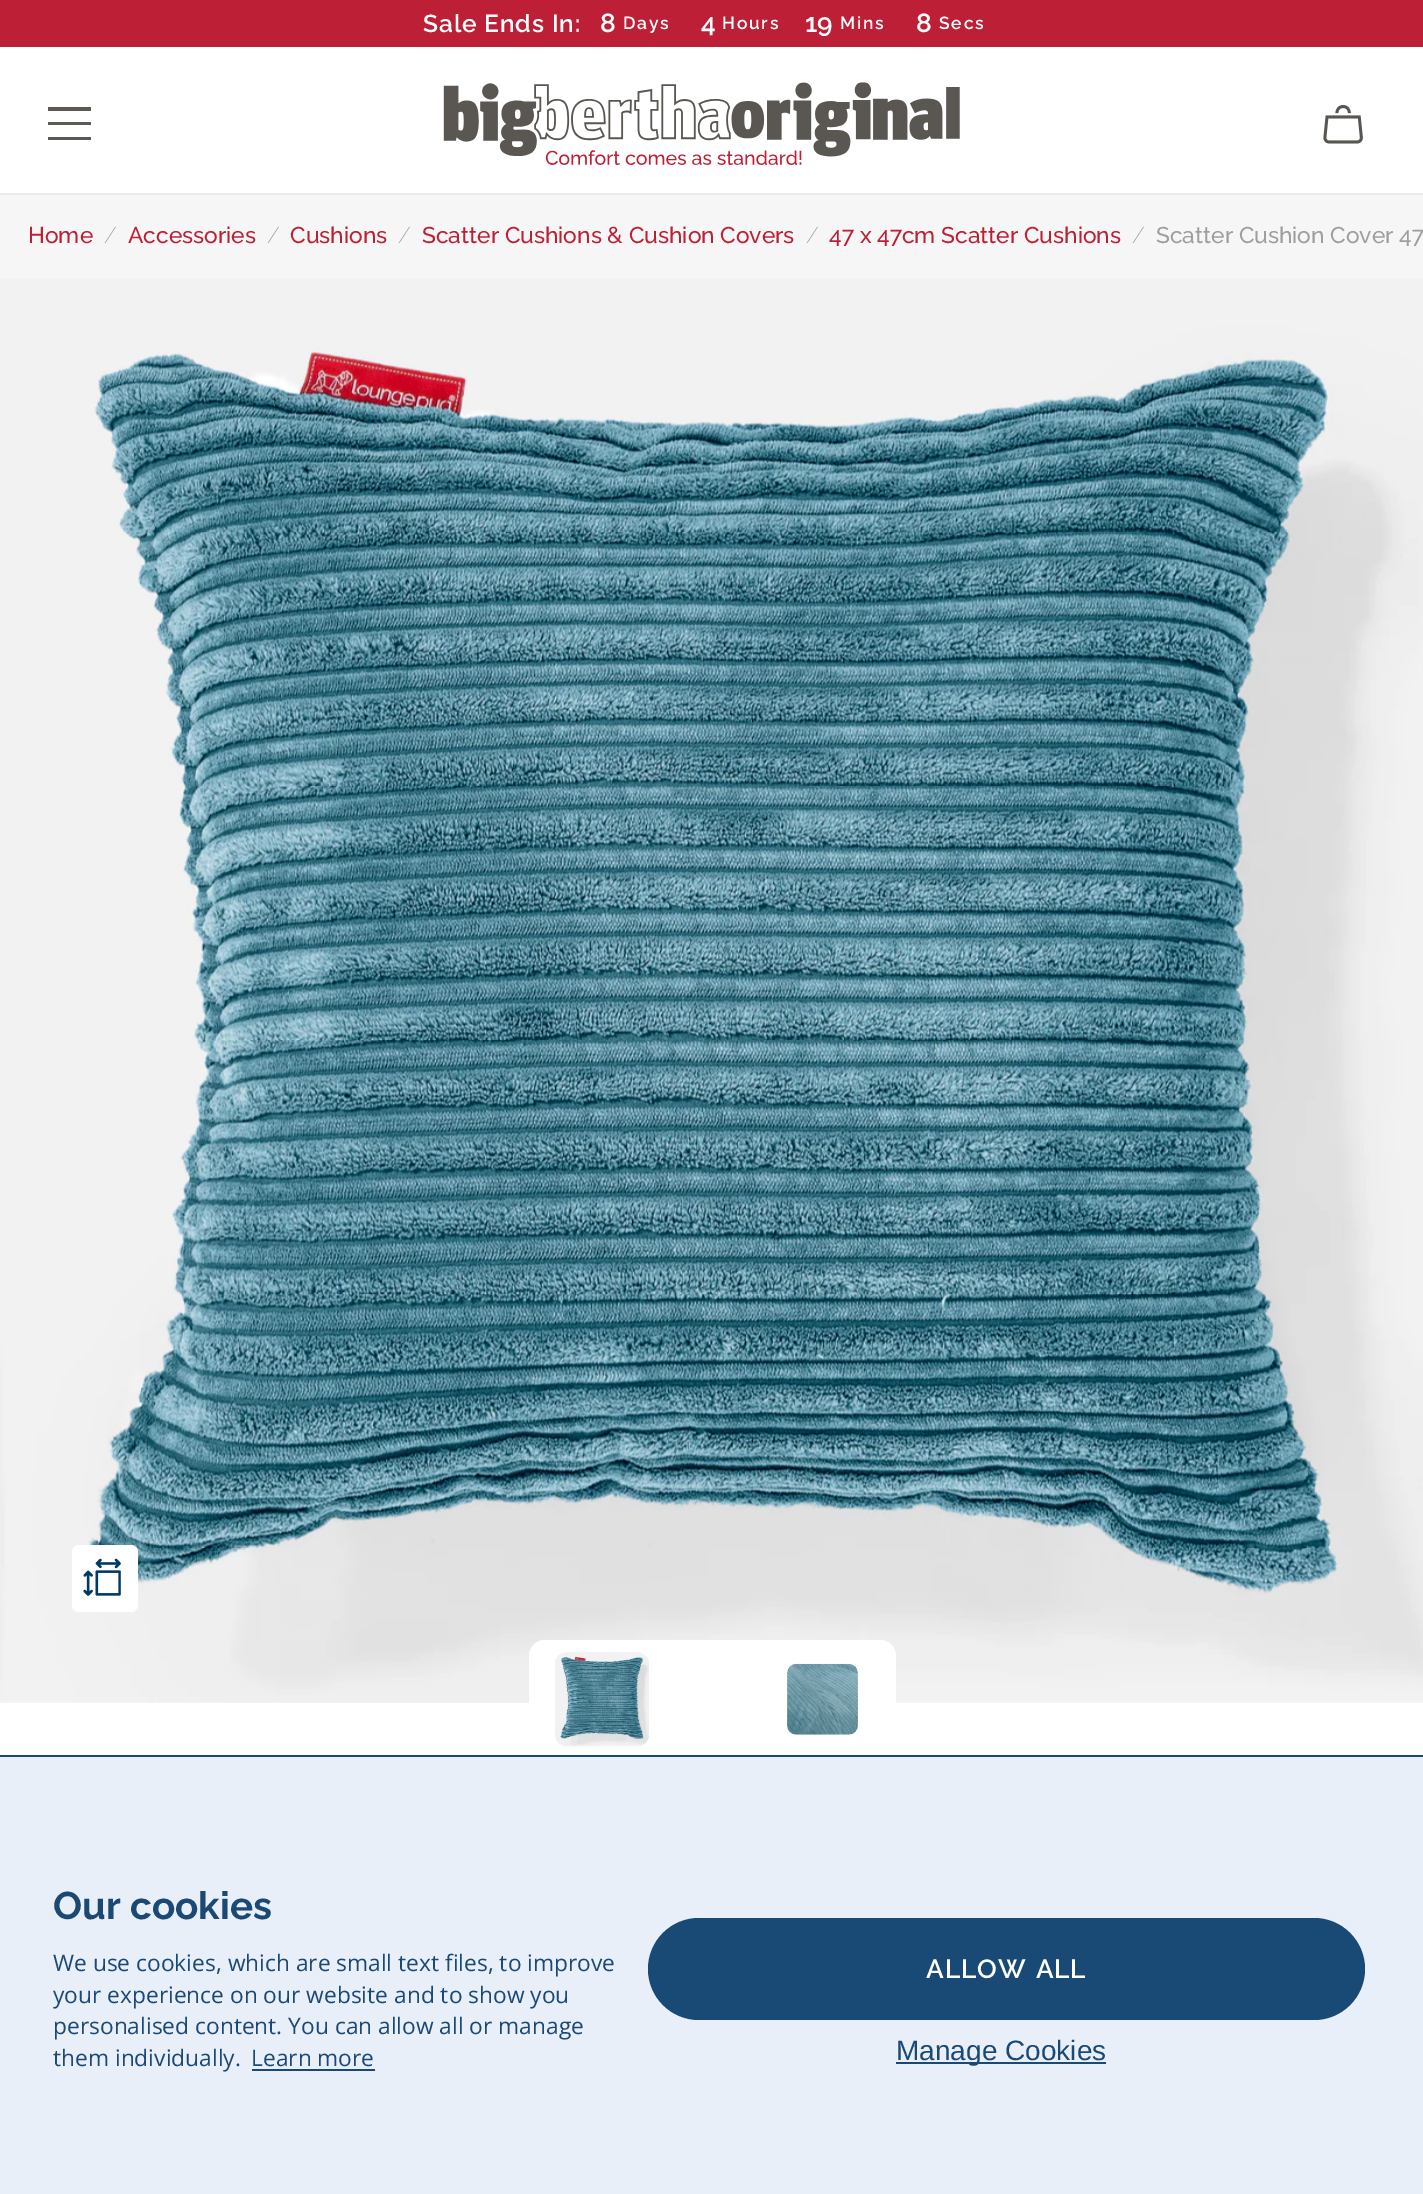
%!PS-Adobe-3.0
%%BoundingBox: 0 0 1423 2194
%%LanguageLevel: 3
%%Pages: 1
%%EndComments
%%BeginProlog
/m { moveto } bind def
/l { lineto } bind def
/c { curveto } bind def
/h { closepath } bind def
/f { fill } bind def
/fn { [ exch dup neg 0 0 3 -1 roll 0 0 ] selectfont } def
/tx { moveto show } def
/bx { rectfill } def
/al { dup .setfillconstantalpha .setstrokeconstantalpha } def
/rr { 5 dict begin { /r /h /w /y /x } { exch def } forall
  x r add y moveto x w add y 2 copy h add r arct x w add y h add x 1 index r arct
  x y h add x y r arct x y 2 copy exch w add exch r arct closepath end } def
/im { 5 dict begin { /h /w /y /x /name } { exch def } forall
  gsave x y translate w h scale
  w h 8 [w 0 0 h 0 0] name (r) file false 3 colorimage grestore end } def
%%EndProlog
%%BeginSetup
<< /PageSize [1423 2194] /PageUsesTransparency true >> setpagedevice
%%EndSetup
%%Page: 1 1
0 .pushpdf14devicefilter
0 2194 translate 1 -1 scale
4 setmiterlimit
1 setgray
0 0 1423 2194 bx
0.741 0.125 0.212 setrgbcolor
0 0 1423 47 bx
/Raleway-SemiBold 24.5 fn
1 setgray
423 32 m 0.9 0 (Sale Ends In:) ashow
/Raleway-SemiBold 26.25 fn
(8) 600 32 tx
/Raleway-SemiBold 17.5 fn
623 29 m 1.75 0 (Days) ashow
/Raleway-SemiBold 26.25 fn
(4) 701 32 tx
/Raleway-SemiBold 17.5 fn
722 29 m 1.75 0 (Hours) ashow
/Raleway-SemiBold 26.25 fn
(19) 805 32 tx
/Raleway-SemiBold 17.5 fn
840 29 m 1.75 0 (Mins) ashow
/Raleway-SemiBold 26.25 fn
(8) 916 32 tx
/Raleway-SemiBold 17.5 fn
939 29 m 1.75 0 (Secs) ashow
0.922 setgray
0 193 1423 2 bx
0.361 0.345 0.325 setrgbcolor
91 111 m 48 111 l 48 107 l 91 107 l h 91 125 m 48 125 l 48 122 l 91 122 l h 48 140 m 91 140 l 91 137 l 48 137 l h eofill
(image0.raw) 443 82 517 83 im
(image1.raw) 1323 105 40 39 im
0.965 setgray
0 195 1423 83 bx
/Raleway-Medium 22.75 fn
0.741 0.125 0.212 setrgbcolor
(Home) 28 243 tx
/Raleway-ExtraLight 22.75 fn
0.62 setgray
(/) 104 243 tx
/Raleway-Medium 22.75 fn
0.741 0.125 0.212 setrgbcolor
(Accessories) 128 243 tx
/Raleway-ExtraLight 22.75 fn
0.62 setgray
(/) 267 243 tx
/Raleway-Medium 22.75 fn
0.741 0.125 0.212 setrgbcolor
(Cushions) 290 243 tx
/Raleway-ExtraLight 22.75 fn
0.62 setgray
(/) 398 243 tx
/Raleway-Medium 22.75 fn
0.741 0.125 0.212 setrgbcolor
(Scatter Cushions & Cushion Covers) 422 243 tx
/Raleway-ExtraLight 22.75 fn
0.62 setgray
(/) 806 243 tx
/Raleway-Medium 22.75 fn
0.741 0.125 0.212 setrgbcolor
(47 x 47cm Scatter Cushions) 829 243 tx
/Raleway-ExtraLight 22.75 fn
0.62 setgray
(/) 1132 243 tx
/Raleway-Medium 22.75 fn
(Scatter Cushion Cover 47) 1156 243 tx
0.976 setgray
0 278 1423 1425 bx
(image2.raw) 0 278 1423 1425 im
1 setgray
72 1545 66 67 7 rr f
(image3.raw) 83 1558 38 38 im
529 1640 367 119 16 rr f
(image4.raw) 555 1652 94 95 im
(image5.raw) 787 1663 71 72 im
0.04 al
800 1734 m 856 1668 l 857 1669 858 1671 858 1673 c 858 1725 l 858 1730 854 1734 849 1734 c h f
1 al
0.91 0.937 0.976 setrgbcolor
0 1757 1423 437 bx
0.098 0.29 0.459 setrgbcolor
0 1755 1423 2 bx
/Raleway-Bold 38.5 fn
0.106 0.286 0.459 setrgbcolor
(Our cookies) 53 1919 tx
/OpenSans-Regular 22.75 fn
(We use cookies, which are small text files, to improve) 53 1971 tx
(your experience on our website and to show you) 53 2003 tx
(personalised content. You can allow all or manage) 53 2034 tx
(them individually.) 53 2066 tx
(Learn more) 251 2066 tx
252 2069 123 2 bx
0.098 0.29 0.459 setrgbcolor
648 1918 717 102 51 rr f
/Raleway-SemiBold 26.25 fn
1 setgray
926 1978 m 2 0 32 0.9 0 (ALLOW ALL) awidthshow
0.106 0.286 0.459 setrgbcolor
896 2062 210 2 bx
/LiberationSans-Regular 28 fn
(Manage Cookies) 896 2060 tx
.poppdf14devicefilter showpage
%%EOF
